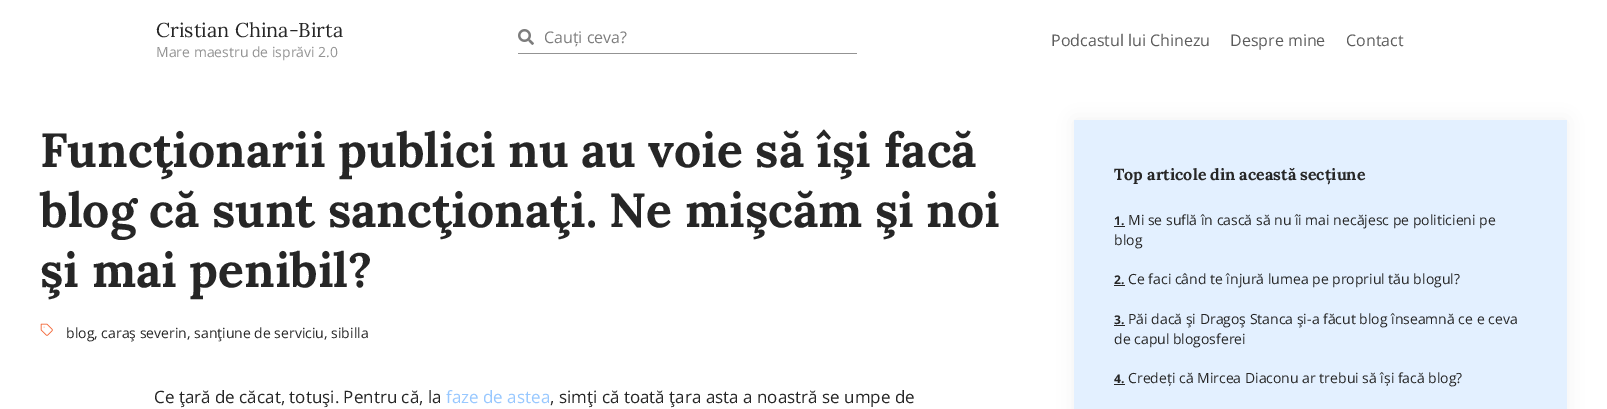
%!PS-Adobe-3.0
%%BoundingBox: 0 0 1607 409
%%LanguageLevel: 3
%%Pages: 1
%%EndComments
%%BeginProlog
/fn { [ exch dup neg 0 0 3 -1 roll 0 0 ] selectfont } def
/tx { moveto show } def
/bx { rectfill } def
/al { dup .setfillconstantalpha .setstrokeconstantalpha } def
/rr { 5 dict begin { /r /h /w /y /x } { exch def } forall
  x r add y moveto x w add y 2 copy h add r arct x w add y h add x 1 index r arct
  x y h add x y r arct x y 2 copy exch w add exch r arct closepath end } def
/sh { 12 dict begin { /a /b /q /h /w /y /x } { exch def } forall gsave /was 0 def
  9 -2 -9 { dup b mul 4 div /e exch def 1 sub .425 mul 2.718 exch exp 1 add a .99 .min exch div /now exch def
    1 1 now sub 1 was sub div sub al /was now def
    w h .min e 2 mul add 0 gt { x e sub y e sub w e 2 mul add h e 2 mul add
      q e add b .6 mul add w h .min 2 div e add .min 0 .max rr fill } if } for grestore end } def
/im { 5 dict begin { /h /w /y /x /name } { exch def } forall
  gsave x y translate w h scale
  w h 8 [w 0 0 h 0 0] name (r) file false 3 colorimage grestore end } def
%%EndProlog
%%BeginSetup
<< /PageSize [1607 409] /PageUsesTransparency true >> setpagedevice
%%EndSetup
%%Page: 1 1
0 .pushpdf14devicefilter
0 409 translate 1 -1 scale
4 setmiterlimit
1 setgray
0 0 1607 409 bx
/Lora-Regular 20 fn
0.149 setgray
(Cristian China-Birta) 156 37 tx
/OpenSans-Regular 14 fn
0.576 setgray
(Mare maestru de isprăvi 2.0) 156 57 tx
518 53 339 1 bx
(image0.raw) 518 29 16 16 im
/OpenSans-Regular 16 fn
0.49 setgray
(Cauți ceva?) 544 43 tx
0.361 setgray
(Podcastul lui Chinezu) 1051 46 tx
(Despre mine) 1230 46 tx
(Contact) 1346 46 tx
/Lora-Bold 48 fn
0.149 setgray
(Funcţionarii publici nu au voie să îşi facă) 40 167 tx
(blog că sunt sancţionaţi. Ne mişcăm şi noi) 40 227 tx
(şi mai penibil?) 40 287 tx
(image1.raw) 40 323 13 13 im
/OpenSans-Regular 14 fn
(blog, caraş severin, sanţiune de serviciu, sibilla) 66 338 tx
/OpenSans-Regular 17 fn
(Ce ţară de căcat, totuşi. Pentru că, la) 154 403 tx
0.596 0.784 1 setrgbcolor
(faze de astea) 446 403 tx
0.149 setgray
(, simţi că toată ţara asta a noastră se umpe de) 550 403 tx
0 setgray
1074 120 493 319 0 10 0.05 sh
0.89 0.941 1 setrgbcolor
1074 120 493 289 bx
/Lora-Bold 16 fn
0.149 setgray
(Top articole din această secțiune) 1114 180 tx
/OpenSans-Bold 12 fn
(1.) 1114 225 tx
1114 226 11 1 bx
/OpenSans-Regular 14 fn
(Mi se suflă în cască să nu îi mai necăjesc pe politicieni pe) 1128 225 tx
(blog) 1114 245 tx
/OpenSans-Bold 12 fn
(2.) 1114 284 tx
1114 285 11 1 bx
/OpenSans-Regular 14 fn
(Ce faci când te înjură lumea pe propriul tău blogul?) 1128 284 tx
/OpenSans-Bold 12 fn
(3.) 1114 324 tx
1114 325 11 1 bx
/OpenSans-Regular 14 fn
(Păi dacă şi Dragoş Stanca şi-a făcut blog înseamnă ce e ceva) 1128 324 tx
(de capul blogosferei) 1114 344 tx
/OpenSans-Bold 12 fn
(4.) 1114 383 tx
1114 384 11 1 bx
/OpenSans-Regular 14 fn
(Credeți că Mircea Diaconu ar trebui să își facă blog?) 1128 383 tx
.poppdf14devicefilter showpage
%%EOF
